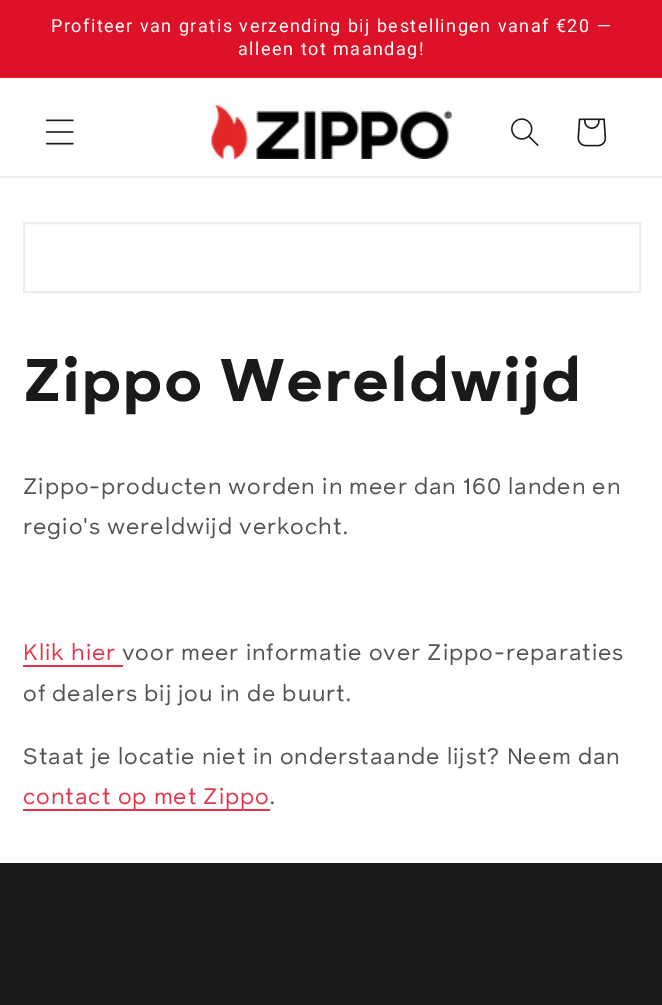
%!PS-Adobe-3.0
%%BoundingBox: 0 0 662 1005
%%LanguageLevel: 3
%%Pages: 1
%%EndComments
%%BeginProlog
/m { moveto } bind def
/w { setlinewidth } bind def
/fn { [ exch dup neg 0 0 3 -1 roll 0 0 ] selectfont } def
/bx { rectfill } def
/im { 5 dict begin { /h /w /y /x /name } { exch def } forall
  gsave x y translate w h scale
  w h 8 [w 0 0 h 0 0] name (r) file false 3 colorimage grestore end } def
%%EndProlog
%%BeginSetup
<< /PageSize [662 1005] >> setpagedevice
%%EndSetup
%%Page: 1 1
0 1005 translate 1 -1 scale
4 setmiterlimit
1 setgray
0 0 662 1005 bx
0.867 0.071 0.161 setrgbcolor
0 0 662 77 bx
0.878 0.145 0.227 setrgbcolor
0 77 662 1 bx
/Roboto-Regular 18 fn
1 setgray
51 32 m 1.5 0 (Profiteer van gratis verzending bij bestellingen vanaf €20 —) ashow
238 55 m 1.5 0 (alleen tot maandag!) ashow
0.929 setgray
0 176 662 2 bx
(image0.raw) 45 119 29 26 im
(image1.raw) 211 105 241 54 im
(image2.raw) 511 118 28 28 im
(image3.raw) 577 118 30 29 im
0.929 0.922 0.922 setrgbcolor
2 w
24 223 616 69 rectstroke
/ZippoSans-Bold 60 fn
0.102 0.106 0.094 setrgbcolor
23 401 m 0.9 0 (Zippo Wereldwijd) ashow
/ZippoSans-Regular 22.5 fn
0.325 0.329 0.322 setrgbcolor
23 494 m 0.9 0 (Zippo-producten worden in meer dan 160 landen en) ashow
23 534 m 0.9 0 (regio's wereldwijd verkocht.) ashow
0.886 0.212 0.286 setrgbcolor
23 660 m 0.9 0 (Klik hier) ashow
23 665 100 2 bx
0.325 0.329 0.322 setrgbcolor
122 660 m 0.9 0 (voor meer informatie over Zippo-reparaties) ashow
23 701 m 0.9 0 (of dealers bij jou in de buurt.) ashow
23 764 m 0.9 0 (Staat je locatie niet in onderstaande lijst? Neem dan) ashow
0.886 0.212 0.286 setrgbcolor
23 804 m 0.9 0 (contact op met Zippo) ashow
23 809 247 2 bx
0.325 0.329 0.322 setrgbcolor
270 804 m 0.9 0 (.) ashow
0.102 0.106 0.094 setrgbcolor
0 863 662 142 bx
showpage
%%EOF
